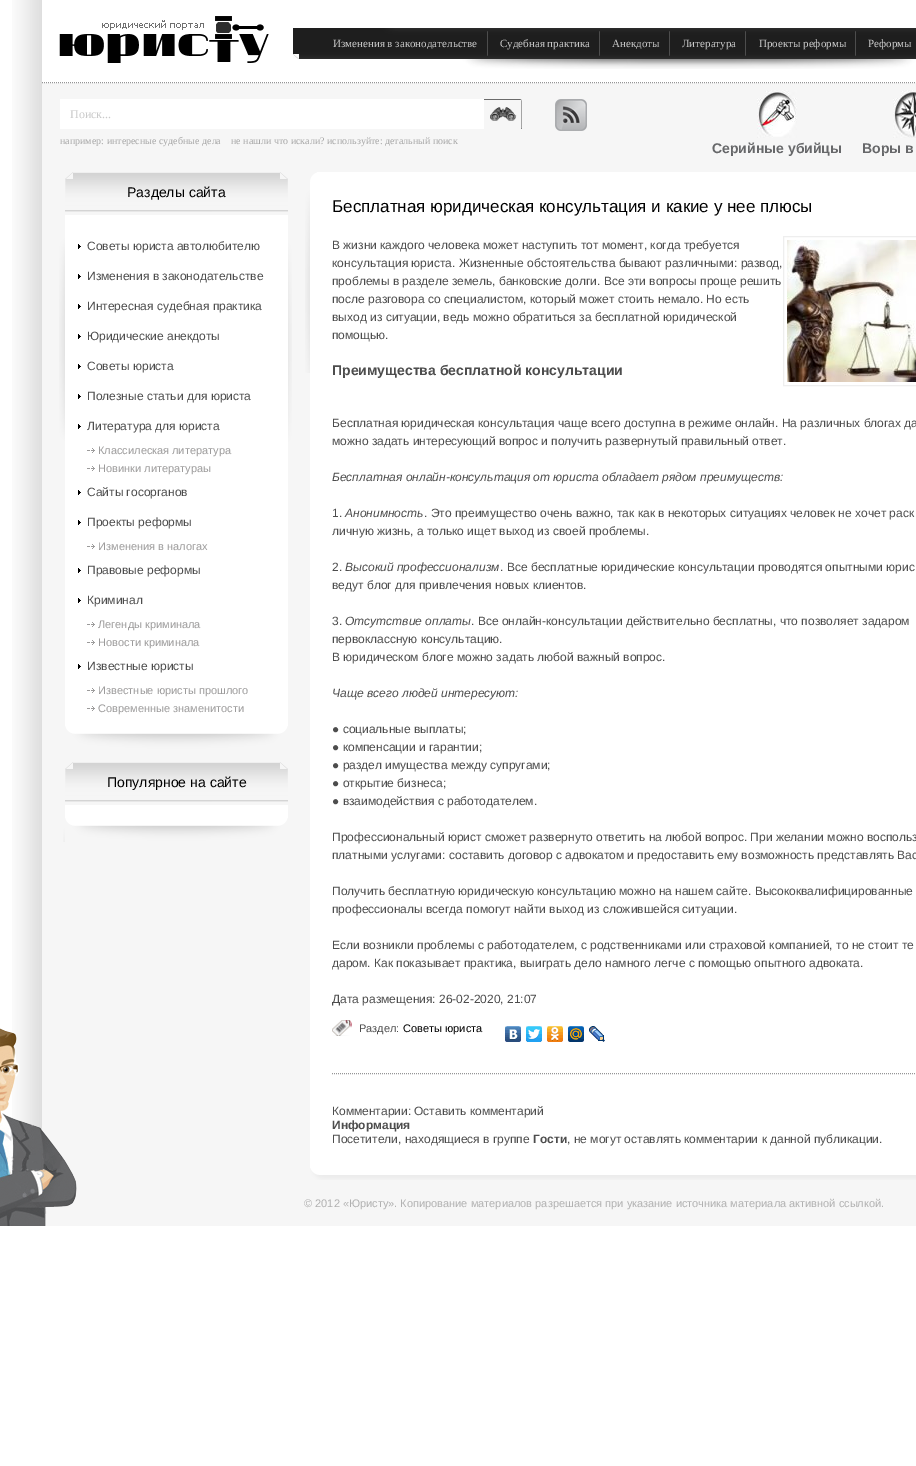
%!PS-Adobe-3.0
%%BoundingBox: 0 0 916 1466
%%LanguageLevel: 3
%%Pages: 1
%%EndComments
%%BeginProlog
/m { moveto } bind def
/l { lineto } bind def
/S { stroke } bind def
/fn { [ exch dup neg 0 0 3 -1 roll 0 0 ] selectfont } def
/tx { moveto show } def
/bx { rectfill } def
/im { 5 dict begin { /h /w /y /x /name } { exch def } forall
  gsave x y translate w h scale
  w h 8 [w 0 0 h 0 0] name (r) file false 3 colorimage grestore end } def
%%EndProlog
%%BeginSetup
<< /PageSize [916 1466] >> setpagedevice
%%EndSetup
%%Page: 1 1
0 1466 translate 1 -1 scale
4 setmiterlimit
1 setgray
0 0 916 1466 bx
(image0.raw) 12 0 30 1130 im
0.965 setgray
42 83 874 1143 bx
0.584 0.584 0.588 setrgbcolor
[1 1] 0 setdash
42 82.5 m 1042 82.5 l S
(image1.raw) 59 16 210 47 im
(image2.raw) 293 28 623 41 im
(image3.raw) 487 31 1 25 im
/LiberationSerif-Regular 11 fn
0.792 setgray
(Изменения в законодательстве) 333 47 tx
(image3.raw) 599 31 1 25 im
(Судебная практика) 500 47 tx
(image3.raw) 669 31 1 25 im
(Анекдоты) 612 47 tx
(image3.raw) 745 31 1 25 im
(Литература) 682 47 tx
(image3.raw) 855 31 1 25 im
(Проекты реформы) 759 47 tx
(Реформы) 868 47 tx
1 setgray
60 99 424 30 bx
/LiberationSerif-Regular 12 fn
0.792 setgray
(Поиск...) 70 118 tx
(image4.raw) 484 99 38 30 im
/LiberationSerif-Regular 10 fn
0.651 setgray
(например: интересные судебные дела) 60 144 tx
(не нашли что искали? используйте: детальный поиск) 231 144 tx
(image5.raw) 555 99 32 32 im
(image6.raw) 757 90 40 48 im
/LiberationSans-Bold 14 fn
0.404 0.408 0.416 setrgbcolor
(Серийные убийцы) 712 153 tx
(image7.raw) 893 90 23 48 im
(Воры в) 862 153 tx
(image8.raw) 65 172 223 40 im
/LiberationSans-Regular 14 fn
0 setgray
(Разделы сайта) 127 197 tx
(image9.raw) 59 215 233 248 im
1 setgray
65 215 223 511 bx
(image10.raw) 65 726 223 24 im
(image11.raw) 78 244 3 5 im
/LiberationSans-Regular 12 fn
0.302 setgray
(Советы юриста автолюбителю) 87 250 tx
(image11.raw) 78 274 3 5 im
(Изменения в законодательстве) 87 280 tx
(image11.raw) 78 304 3 5 im
(Интересная судебная практика) 87 310 tx
(image11.raw) 78 334 3 5 im
(Юридические анекдоты) 87 340 tx
(image11.raw) 78 364 3 5 im
(Советы юриста) 87 370 tx
(image11.raw) 78 394 3 5 im
(Полезные статьи для юриста) 87 400 tx
(image11.raw) 78 424 3 5 im
(Литература для юриста) 87 430 tx
(image12.raw) 87 448 8 5 im
/LiberationSans-Regular 11 fn
0.612 0.608 0.608 setrgbcolor
(Классилеская литература) 98 454 tx
(image12.raw) 87 466 8 5 im
(Новинки литератураы) 98 472 tx
(image11.raw) 78 490 3 5 im
/LiberationSans-Regular 12 fn
0.302 setgray
(Сайты госорганов) 87 496 tx
(image11.raw) 78 520 3 5 im
(Проекты реформы) 87 526 tx
(image12.raw) 87 544 8 5 im
/LiberationSans-Regular 11 fn
0.612 0.608 0.608 setrgbcolor
(Изменения в налогах) 98 550 tx
(image11.raw) 78 568 3 5 im
/LiberationSans-Regular 12 fn
0.302 setgray
(Правовые реформы) 87 574 tx
(image11.raw) 78 598 3 5 im
(Криминал) 87 604 tx
(image12.raw) 87 622 8 5 im
/LiberationSans-Regular 11 fn
0.612 0.608 0.608 setrgbcolor
(Легенды криминала) 98 628 tx
(image12.raw) 87 640 8 5 im
(Новости криминала) 98 646 tx
(image11.raw) 78 664 3 5 im
/LiberationSans-Regular 12 fn
0.302 setgray
(Известные юристы) 87 670 tx
(image12.raw) 87 688 8 5 im
/LiberationSans-Regular 11 fn
0.612 0.608 0.608 setrgbcolor
(Известные юристы прошлого) 98 694 tx
(image12.raw) 87 706 8 5 im
(Современные знаменитости) 98 712 tx
(image8.raw) 65 762 223 40 im
/LiberationSans-Regular 14 fn
0 setgray
(Популярное на сайте) 107 787 tx
(image13.raw) 63 805 2 37 im
1 setgray
65 805 223 13 bx
(image10.raw) 65 818 223 24 im
310 172 606 996 bx
(image14.raw) 305 172 12 201 im
(image15.raw) 310 1168 606 12 im
0.584 0.584 0.588 setrgbcolor
332 1073.5 m 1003 1073.5 l S
/LiberationSans-Regular 17 fn
0 setgray
(Бесплатная юридическая консультация и какие у нее плюсы) 332 212 tx
/LiberationSans-Regular 12 fn
0.302 setgray
(В жизни каждого человека может наступить тот момент, когда требуется) 332 249 tx
0.933 setgray
[] 0 setdash
783.5 236.5 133 149 rectstroke
(image16.raw) 787 240 129 142 im
0.302 setgray
(консультация юриста. Жизненные обстоятельства бывают различными: развод,) 332 267 tx
(проблемы в разделе земель, банковские долги. Все эти вопросы проще решить) 332 285 tx
(после разговора со специалистом, который может стоить немало. Но есть) 332 303 tx
(выход из ситуации, ведь можно обратиться за бесплатной юридической) 332 321 tx
(помощью.) 332 339 tx
/LiberationSans-Bold 14 fn
(Преимущества бесплатной консультации) 332 375 tx
/LiberationSans-Regular 12 fn
(Бесплатная юридическая консультация) 332 427 tx
(чаще всего доступна в режиме онлайн. На различных блогах да) 558 427 tx
(можно задать интересующий вопрос и получить развернутый правильный ответ.) 332 445 tx
/LiberationSans-Italic 12 fn
(Бесплатная онлайн-консультация от юриста обладает рядом преимуществ:) 332 481 tx
/LiberationSans-Regular 12 fn
(1.) 332 517 tx
/LiberationSans-Italic 12 fn
(Анонимность) 345 517 tx
/LiberationSans-Regular 12 fn
(. Это преимущество очень важно, так как в некоторых ситуациях человек не хочет раск) 424 517 tx
(личную жизнь, а только ищет выход из своей проблемы.) 332 535 tx
(2.) 332 571 tx
/LiberationSans-Italic 12 fn
(Высокий профессионализм) 345 571 tx
/LiberationSans-Regular 12 fn
(. Все бесплатные юридические консультации проводятся опытными юрис) 500 571 tx
(ведут блог для привлечения новых клиентов.) 332 589 tx
(3.) 332 625 tx
/LiberationSans-Italic 12 fn
(Отсутствие оплаты) 345 625 tx
/LiberationSans-Regular 12 fn
(. Все онлайн-консультации действительно бесплатны, что позволяет задаром) 471 625 tx
(первоклассную консультацию.) 332 643 tx
(В юридическом блоге можно задать любой важный вопрос.) 332 661 tx
/LiberationSans-Italic 12 fn
(Чаще всего людей интересуют:) 332 697 tx
/LiberationSans-Regular 12 fn
(● социальные выплаты;) 332 733 tx
(● компенсации и гарантии;) 332 751 tx
(● раздел имущества между супругами;) 332 769 tx
(● открытие бизнеса;) 332 787 tx
(● взаимодействия с работодателем.) 332 805 tx
(Профессиональный юрист сможет развернуто ответить на любой вопрос. При желании можно воспольз) 332 841 tx
(платными услугами: составить договор с адвокатом и предоставить ему возможность представлять Вас) 332 859 tx
(Получить бесплатную юридическую консультацию можно на нашем сайте. Высококвалифицированные) 332 895 tx
(профессионалы всегда помогут найти выход из сложившейся ситуации.) 332 913 tx
(Если возникли проблемы с работодателем, с родственниками или страховой компанией, то не стоит те) 332 949 tx
(даром. Как показывает практика, выиграть дело намного легче с помощью опытного адвоката.) 332 967 tx
(Дата размещения: 26-02-2020, 21:07) 332 1003 tx
(image17.raw) 332 1020 20 16 im
/LiberationSans-Regular 11 fn
(Раздел:) 359 1032 tx
0 setgray
(Советы юриста) 403 1032 tx
(image18.raw) 505 1026 16 16 im
(image19.raw) 526 1026 16 16 im
(image20.raw) 547 1026 16 16 im
(image21.raw) 568 1026 16 16 im
(image22.raw) 589 1026 16 16 im
/LiberationSans-Regular 12 fn
0.302 setgray
(Комментарии:) 332 1115 tx
(Оставить комментарий) 414 1115 tx
/LiberationSans-Bold 12 fn
(Информация) 332 1129 tx
/LiberationSans-Regular 12 fn
(Посетители, находящиеся в группе) 332 1143 tx
/LiberationSans-Bold 12 fn
(Гости) 533 1143 tx
/LiberationSans-Regular 12 fn
(, не могут оставлять комментарии к данной публикации.) 567 1143 tx
(image23.raw) 0 1028 77 198 im
/LiberationSans-Regular 11 fn
0.694 setgray
(© 2012 «Юристу». Копирование материалов разрешается при указание источника материала активной ссылкой.) 304 1207 tx
showpage
%%EOF
